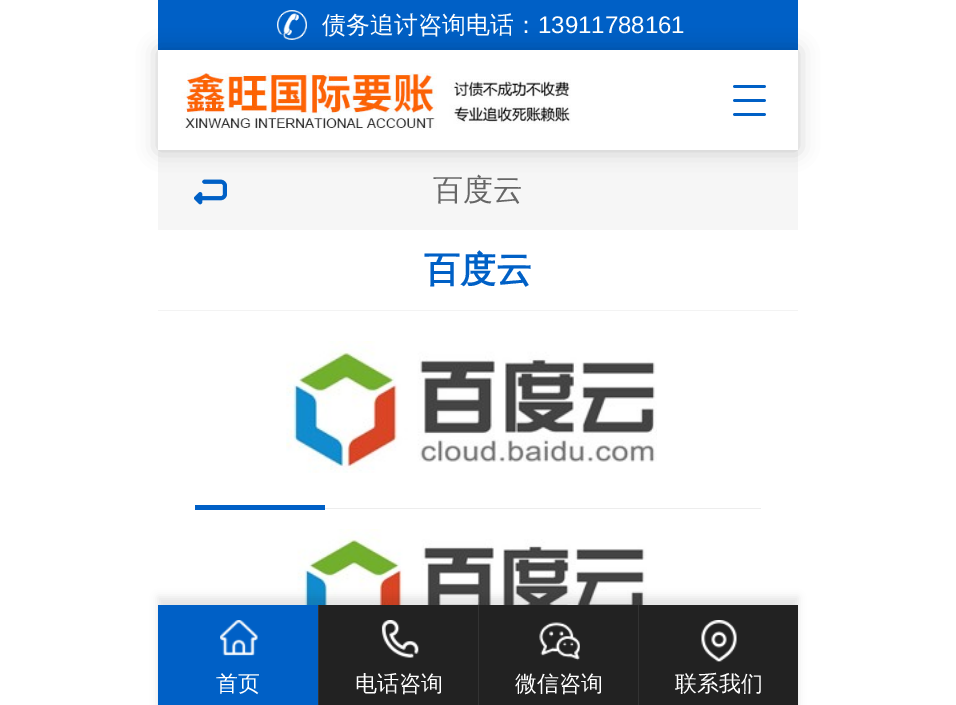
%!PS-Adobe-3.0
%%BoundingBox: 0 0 956 705
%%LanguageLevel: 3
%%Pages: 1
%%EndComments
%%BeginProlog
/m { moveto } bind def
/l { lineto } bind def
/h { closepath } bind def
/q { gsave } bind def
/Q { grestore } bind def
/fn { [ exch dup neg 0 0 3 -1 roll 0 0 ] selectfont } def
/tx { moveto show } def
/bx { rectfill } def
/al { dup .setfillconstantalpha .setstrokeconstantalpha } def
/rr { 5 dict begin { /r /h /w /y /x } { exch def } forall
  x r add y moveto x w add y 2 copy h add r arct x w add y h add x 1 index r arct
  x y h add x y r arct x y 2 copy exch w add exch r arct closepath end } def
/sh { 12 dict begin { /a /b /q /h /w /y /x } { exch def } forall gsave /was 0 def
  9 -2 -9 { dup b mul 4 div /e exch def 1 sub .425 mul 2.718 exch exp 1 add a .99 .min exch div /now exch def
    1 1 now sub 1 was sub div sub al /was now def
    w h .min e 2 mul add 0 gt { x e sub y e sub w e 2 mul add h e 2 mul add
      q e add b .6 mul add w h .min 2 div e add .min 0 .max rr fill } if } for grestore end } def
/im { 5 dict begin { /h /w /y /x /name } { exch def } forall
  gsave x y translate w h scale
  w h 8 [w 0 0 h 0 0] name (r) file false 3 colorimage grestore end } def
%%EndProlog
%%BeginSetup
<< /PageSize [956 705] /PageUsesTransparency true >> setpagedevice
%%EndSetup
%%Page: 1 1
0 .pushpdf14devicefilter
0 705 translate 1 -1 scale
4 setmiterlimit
1 setgray
0 0 956 705 bx
0 0.376 0.776 setrgbcolor
158 0 640 50 bx
(image0.raw) 277 10 30 30 im
/WenQuanYiZenHei-Medium 24 fn
1 setgray
(债务追讨咨询电话：) 322 33 tx
/LiberationSans-Regular 24 fn
(13911788161) 538 33 tx
0.965 setgray
158 150 640 80 bx
(image3.raw) 194 179 33 26 im
q
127 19 m 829 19 l 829 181 l 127 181 l h 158 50 m 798 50 l 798 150 l 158 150 l h eoclip newpath
0 setgray
158 50 640 100 0 10 0.2 sh
Q
(image1.raw) 181 73 390 57 im
(image2.raw) 733 85 33 31 im
/WenQuanYiZenHei-Medium 30 fn
0.4 setgray
(百度云) 433 200 tx
0.953 setgray
158 310 640 1 bx
/WenQuanYiZenHei-Bold 36 fn
0 0.376 0.776 setrgbcolor
(百度云) 424 282 tx
(image4.raw) 286 341 371 132 im
0.929 setgray
325 508 436 1 bx
0 0.376 0.776 setrgbcolor
195 505 130 5 bx
(image5.raw) 297 529 350 76 im
0 setgray
158 597 640 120 0 4 0.1 sh
0.133 setgray
319 605 479 100 bx
0 0.376 0.776 setrgbcolor
158 605 160 100 bx
(image6.raw) 220 620 38 36 im
/WenQuanYiZenHei-Medium 22 fn
1 setgray
(首页) 216 691 tx
0.2 setgray
318 605 1 100 bx
(image7.raw) 381 620 38 38 im
1 setgray
(电话咨询) 355 691 tx
0.2 setgray
478 605 1 100 bx
(image8.raw) 539 622 41 39 im
1 setgray
(微信咨询) 515 691 tx
0.2 setgray
638 605 1 100 bx
(image9.raw) 701 620 36 42 im
1 setgray
(联系我们) 675 691 tx
.poppdf14devicefilter showpage
%%EOF
